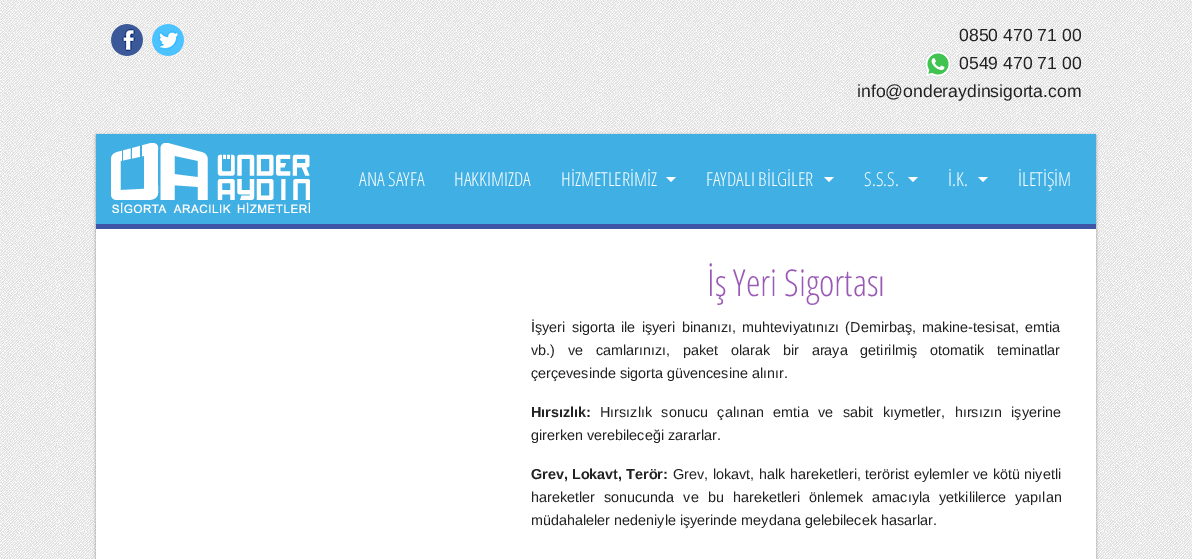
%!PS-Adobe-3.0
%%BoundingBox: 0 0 1192 559
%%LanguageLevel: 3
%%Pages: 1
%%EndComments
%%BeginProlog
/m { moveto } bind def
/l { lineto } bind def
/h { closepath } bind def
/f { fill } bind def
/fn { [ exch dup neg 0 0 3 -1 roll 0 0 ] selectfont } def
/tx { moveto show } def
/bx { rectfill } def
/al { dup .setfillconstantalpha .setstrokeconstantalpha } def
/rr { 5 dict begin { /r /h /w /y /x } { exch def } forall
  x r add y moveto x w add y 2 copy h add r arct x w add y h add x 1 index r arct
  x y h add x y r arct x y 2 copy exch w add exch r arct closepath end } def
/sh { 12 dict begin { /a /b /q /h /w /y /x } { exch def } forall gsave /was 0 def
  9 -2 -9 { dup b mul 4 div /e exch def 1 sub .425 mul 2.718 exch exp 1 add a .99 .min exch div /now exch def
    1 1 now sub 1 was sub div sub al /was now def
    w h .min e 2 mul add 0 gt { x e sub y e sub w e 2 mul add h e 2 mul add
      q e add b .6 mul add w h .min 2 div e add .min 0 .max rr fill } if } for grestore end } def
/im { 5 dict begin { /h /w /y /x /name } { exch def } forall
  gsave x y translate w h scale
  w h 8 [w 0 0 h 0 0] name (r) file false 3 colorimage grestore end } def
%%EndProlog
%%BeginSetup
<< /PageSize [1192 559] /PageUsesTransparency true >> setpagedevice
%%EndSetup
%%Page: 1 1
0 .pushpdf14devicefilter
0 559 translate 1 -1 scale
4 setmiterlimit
1 setgray
0 0 1192 559 bx
(image0.raw) 0 0 1192 559 im
(image1.raw) 111 24 32 32 im
(image2.raw) 152 24 32 32 im
/LiberationSans-Regular 17.6 fn
0.133 setgray
(0850 470 71 00) 959 41 tx
(image3.raw) 924 50 28 28 im
(0549 470 71 00) 959 69 tx
(info@onderaydinsigorta.com) 857 97 tx
0.133 0.098 0.098 setrgbcolor
96 135 1000 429 0 1.5 0.4 sh
1 setgray
96 229 1000 330 bx
0.251 0.686 0.89 setrgbcolor
96 134 837 90 bx
(image4.raw) 111 143 199 70 im
/OpenSansCondensed-Light 19.25 fn
1 setgray
(ANA SAYFA) 359 186 tx
(HAKKIMIZDA) 454 186 tx
(HİZMETLERİMİZ) 561 186 tx
666 177 m 676 177 l 671 182 l h f
(FAYDALI BİLGİLER) 706 186 tx
824 177 m 834 177 l 829 182 l h f
(S.S.S.) 864 186 tx
908 177 m 918 177 l 913 182 l h f
0.251 0.686 0.89 setrgbcolor
933 134 163 90 bx
1 setgray
(İ.K.) 948 186 tx
978 177 m 988 177 l 983 182 l h f
(İLETİŞİM) 1018 186 tx
0.247 0.337 0.651 setrgbcolor
96 224 1000 5 bx
/OpenSansCondensed-Light 37 fn
0.608 0.349 0.714 setrgbcolor
(İş Yeri Sigortası) 707 296 tx
/LiberationSans-Regular 14.4 fn
0.133 setgray
531 332 m 2.25 0 32 (İşyeri sigorta ile işyeri binanızı, muhteviyatınızı \(Demirbaş, makine-tesisat, emtia) widthshow
531 355 m 8.75 0 32 (vb.\) ve camlarınızı, paket olarak bir araya getirilmiş otomatik teminatlar) widthshow
(çerçevesinde sigorta güvencesine alınır.) 531 378 tx
/LiberationSans-Bold 14.4 fn
(Hırsızlık:) 531 417 tx
/LiberationSans-Regular 14.4 fn
600 417 m 5.5 0 32 (Hırsızlık sonucu çalınan emtia ve sabit kıymetler, hırsızın işyerine) widthshow
(girerken verebileceği zararlar.) 531 440 tx
/LiberationSans-Bold 14.4 fn
(Grev, Lokavt, Terör:) 531 479 tx
/LiberationSans-Regular 14.4 fn
673 479 m 0.5 0 32 (Grev, lokavt, halk hareketleri, terörist eylemler ve kötü niyetli) widthshow
531 502 m 5 0 32 (hareketler sonucunda ve bu hareketleri önlemek amacıyla yetkililerce yapılan) widthshow
(müdahaleler nedeniyle işyerinde meydana gelebilecek hasarlar.) 531 525 tx
.poppdf14devicefilter showpage
%%EOF
